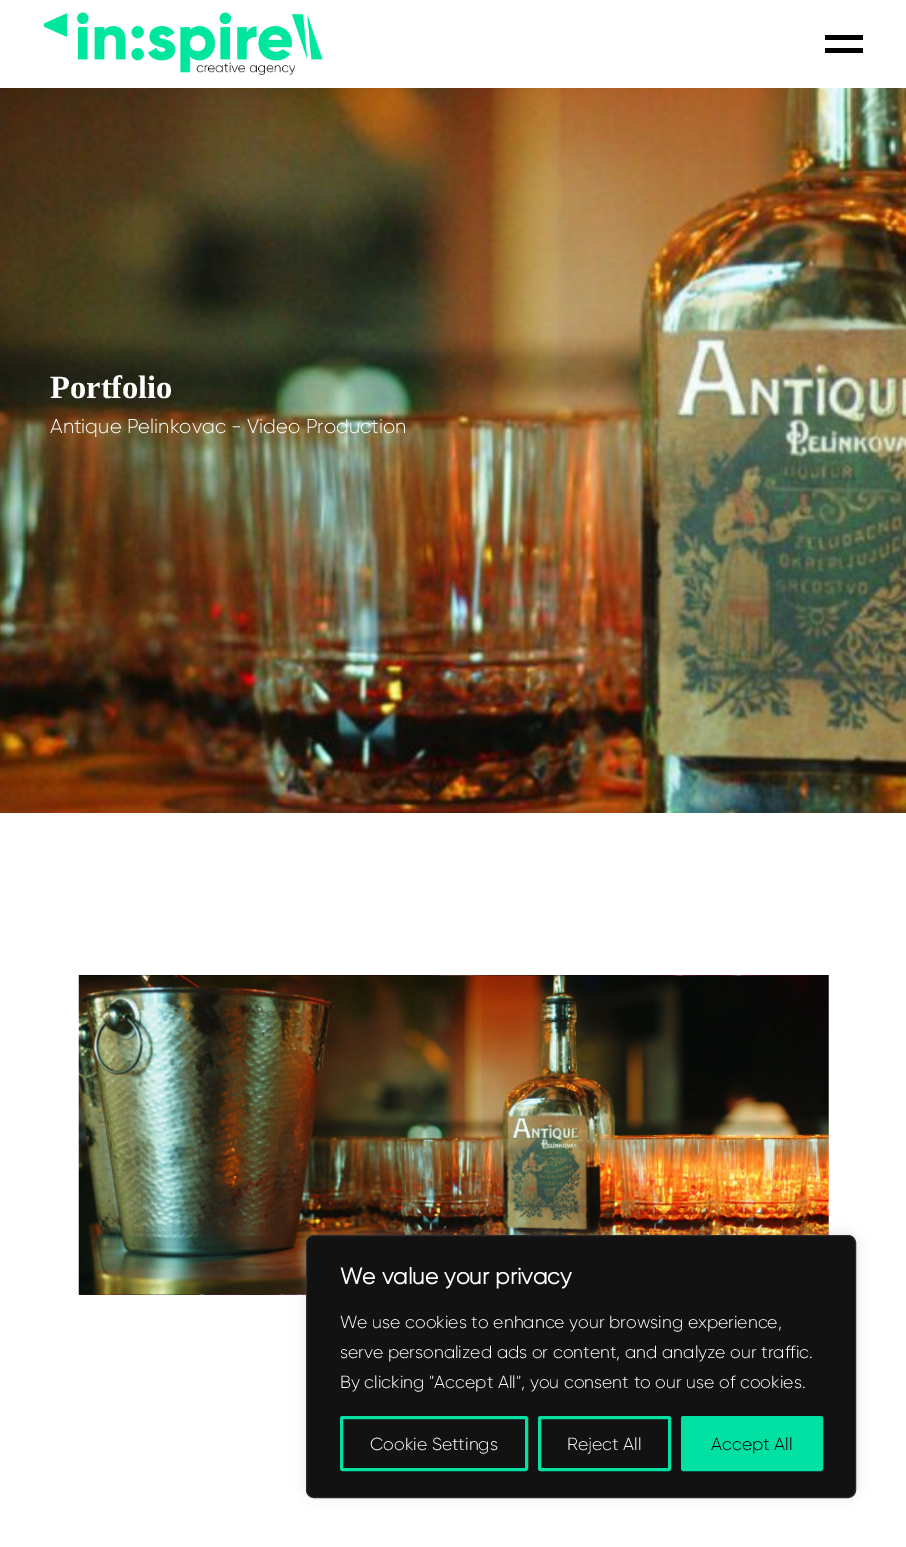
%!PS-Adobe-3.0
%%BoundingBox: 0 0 906 1547
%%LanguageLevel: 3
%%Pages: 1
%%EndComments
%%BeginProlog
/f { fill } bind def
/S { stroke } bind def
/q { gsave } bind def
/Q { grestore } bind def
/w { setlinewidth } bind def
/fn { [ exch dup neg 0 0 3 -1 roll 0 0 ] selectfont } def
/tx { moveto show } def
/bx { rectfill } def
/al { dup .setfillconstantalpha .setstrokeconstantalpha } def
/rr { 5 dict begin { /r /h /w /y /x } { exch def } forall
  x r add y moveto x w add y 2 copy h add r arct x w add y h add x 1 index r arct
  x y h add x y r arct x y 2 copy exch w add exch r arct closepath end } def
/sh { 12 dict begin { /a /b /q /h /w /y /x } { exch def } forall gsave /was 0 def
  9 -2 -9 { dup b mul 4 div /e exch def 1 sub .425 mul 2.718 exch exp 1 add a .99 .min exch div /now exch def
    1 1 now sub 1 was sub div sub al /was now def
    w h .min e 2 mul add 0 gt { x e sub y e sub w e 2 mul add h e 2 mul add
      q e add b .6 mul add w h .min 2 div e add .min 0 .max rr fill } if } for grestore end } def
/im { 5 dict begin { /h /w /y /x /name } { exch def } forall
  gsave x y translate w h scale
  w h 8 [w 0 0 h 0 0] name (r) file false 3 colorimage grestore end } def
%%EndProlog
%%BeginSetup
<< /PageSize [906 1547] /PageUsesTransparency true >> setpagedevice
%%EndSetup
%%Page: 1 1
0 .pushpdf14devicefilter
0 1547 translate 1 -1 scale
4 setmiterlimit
1 setgray
0 0 906 1547 bx
(image0.raw) 43 12 280 63 im
0 setgray
825 35 38 5 bx
825 48 38 5 bx
(image1.raw) 0 88 906 725 im
/LiberationSerif-Bold 32.5 fn
1 setgray
(Portfolio) 50 398 tx
/Gilroy-Light 20 fn
(Antique Pelinkovac - Video Production) 50 433 tx
(image2.raw) 78 975 751 320 im
0.675 0.671 0.671 setrgbcolor
306 1234 550 262 8 6 0.3 sh
0.071 setgray
306.5 1235.5 549 262 7.5 rr q f Q
0.165 setgray
S
/Gilroy-Bold 22.5 fn
1 setgray
(We value your privacy) 340 1284 tx
/Gilroy-Light 17.5 fn
(We use cookies to enhance your browsing experience,) 340 1328 tx
(serve personalized ads or content, and analyze our traffic.) 340 1358 tx
(By clicking "Accept All", you consent to our use of cookies.) 340 1388 tx
0 0.882 0.639 setrgbcolor
3 w
341.5 1417.5 185 52 1 rr S
1 setgray
(Cookie Settings) 370 1450 tx
0 0.882 0.639 setrgbcolor
539.5 1417.5 130 52 1 rr S
1 setgray
(Reject All) 567 1450 tx
0 0.882 0.639 setrgbcolor
682.5 1417.5 139 52 1 rr q f Q
S
0 setgray
(Accept All) 711 1450 tx
.poppdf14devicefilter showpage
%%EOF
